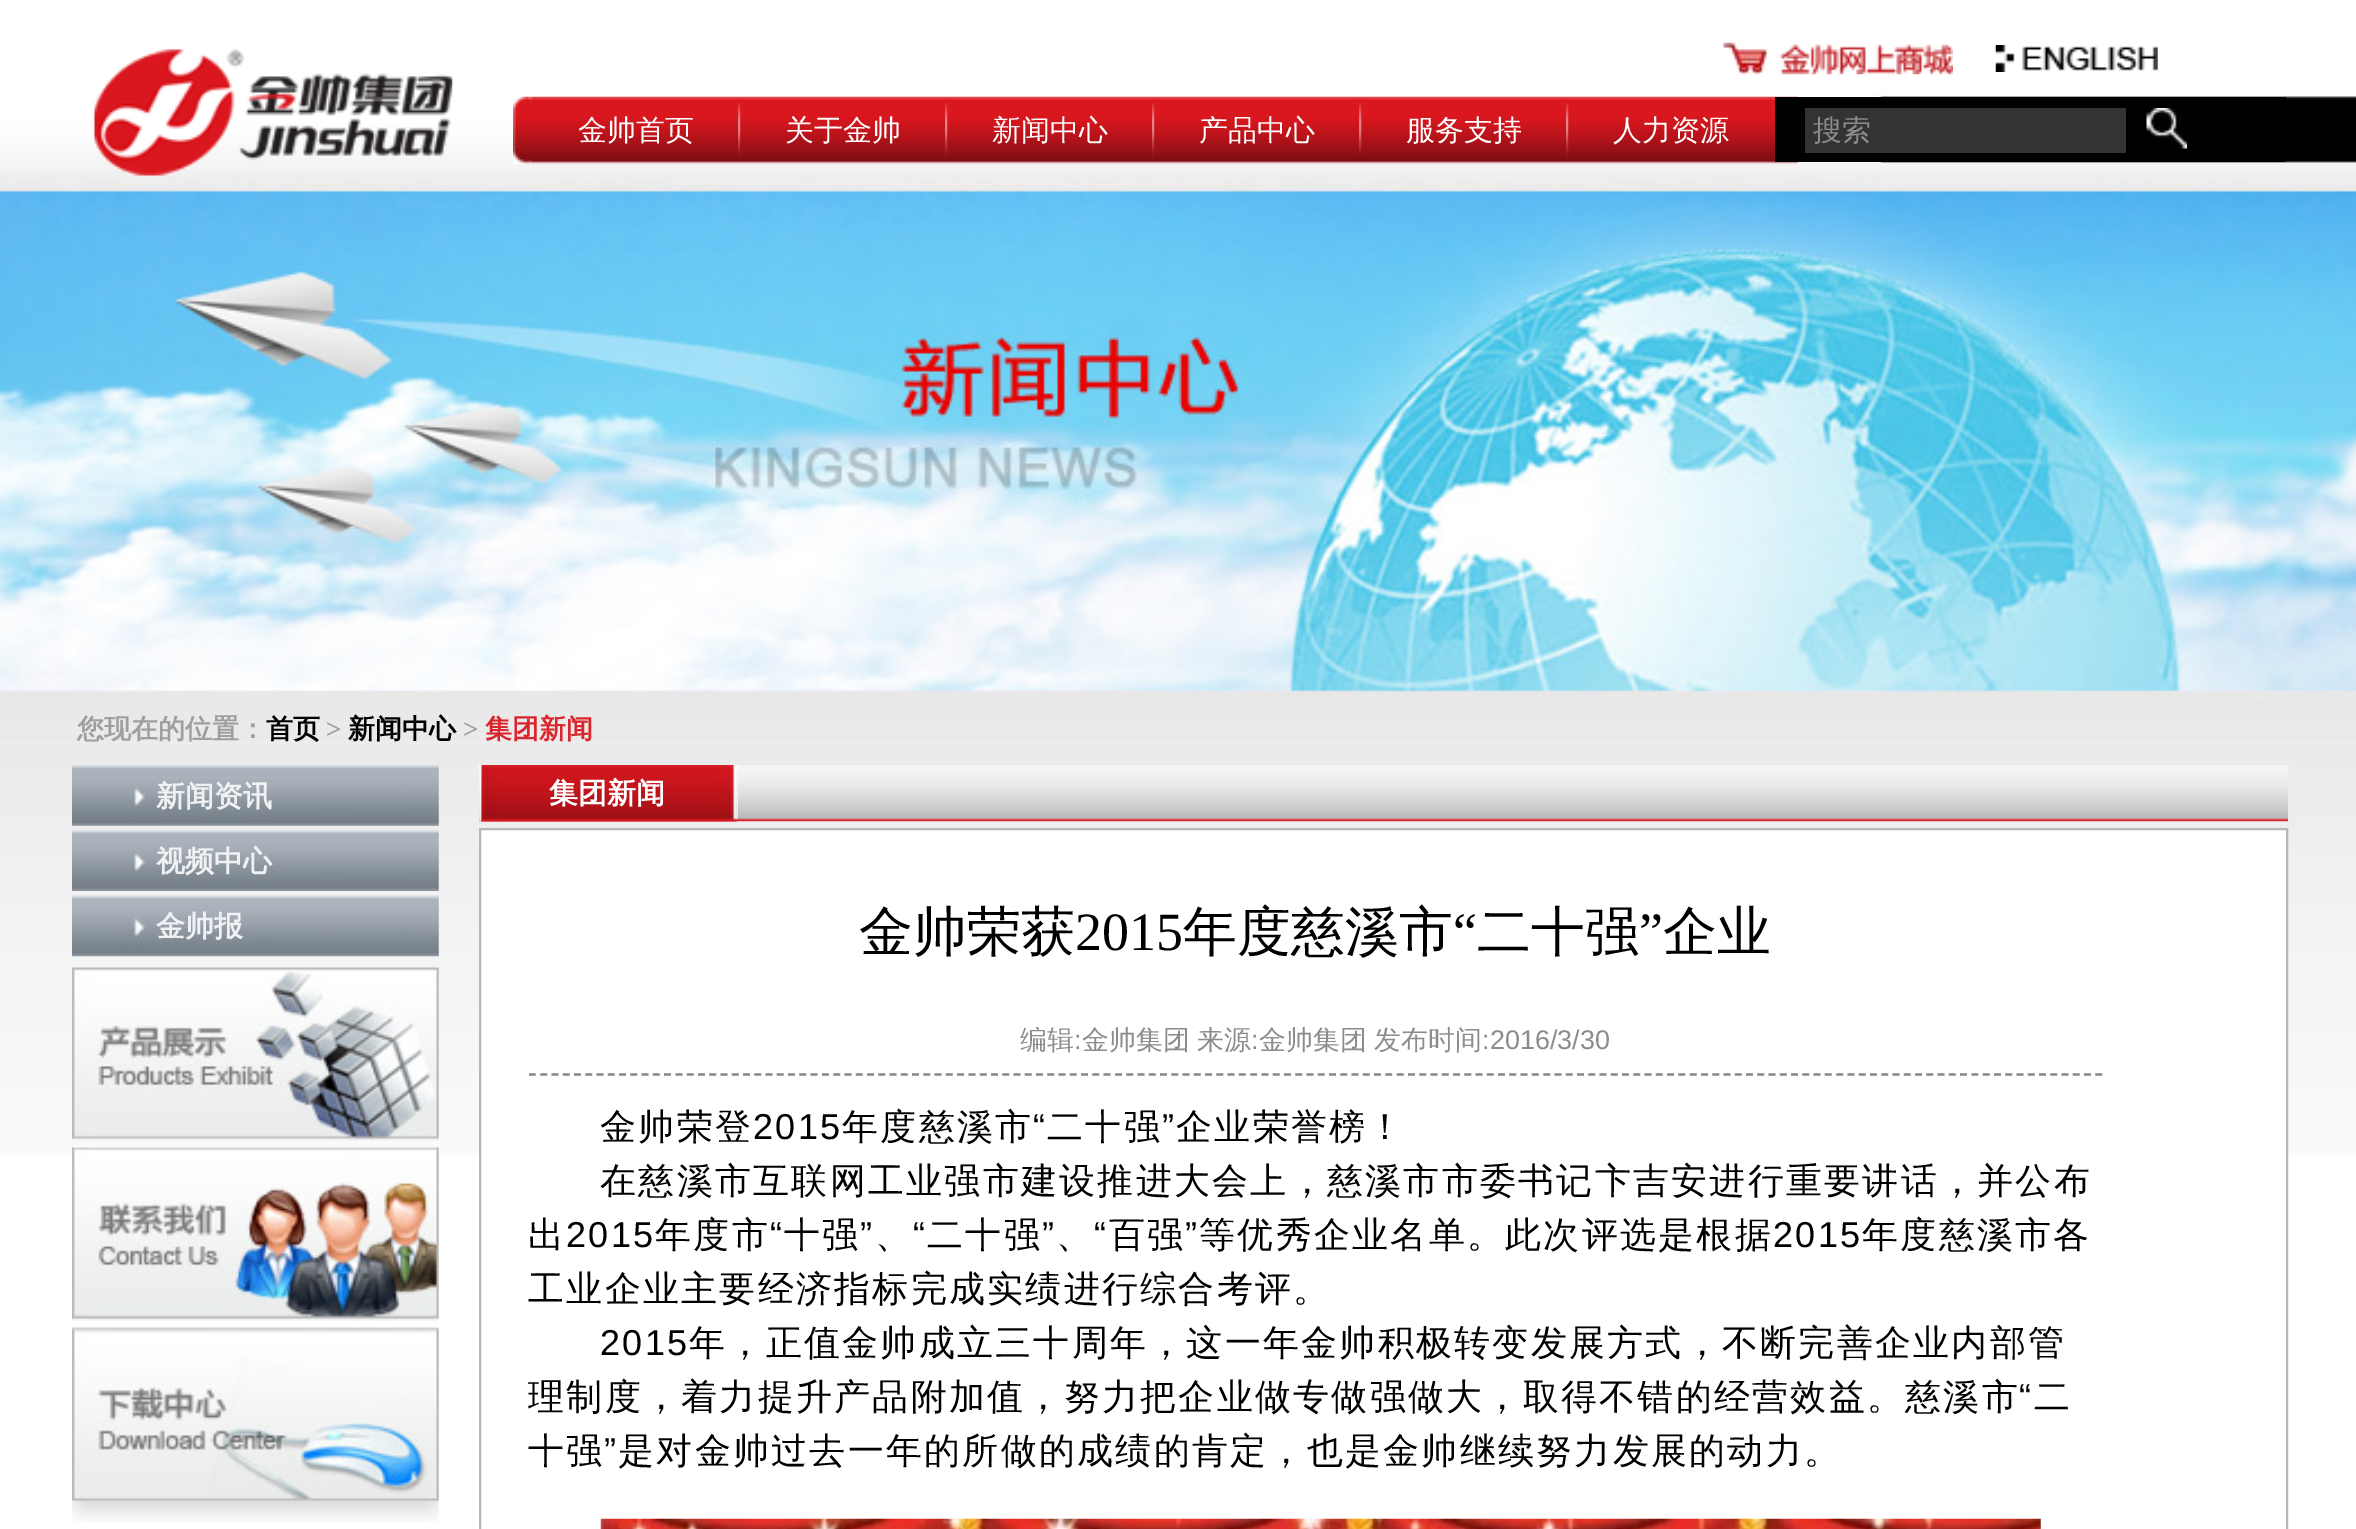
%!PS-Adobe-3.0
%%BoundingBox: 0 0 2356 1529
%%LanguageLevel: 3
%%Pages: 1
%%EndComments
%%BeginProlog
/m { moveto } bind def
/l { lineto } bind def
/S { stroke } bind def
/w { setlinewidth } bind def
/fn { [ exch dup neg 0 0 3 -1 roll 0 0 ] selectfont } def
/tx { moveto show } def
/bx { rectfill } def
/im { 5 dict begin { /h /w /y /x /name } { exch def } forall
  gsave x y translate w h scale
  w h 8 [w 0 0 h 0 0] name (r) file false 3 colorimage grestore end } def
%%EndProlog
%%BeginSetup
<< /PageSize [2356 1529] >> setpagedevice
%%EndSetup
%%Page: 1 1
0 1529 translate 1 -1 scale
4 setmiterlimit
1 setgray
0 0 2356 1529 bx
(image0.raw) 0 92 2356 1063 im
(image1.raw) 94 49 359 127 im
(image2.raw) 513 96 1285 69 im
(image3.raw) 738 103 3 55 im
/WenQuanYiZenHei-Medium 29 fn
(金帅首页) 578 140 tx
(image3.raw) 945 103 3 55 im
(关于金帅) 785 140 tx
(image3.raw) 1152 103 3 55 im
(新闻中心) 992 140 tx
(image3.raw) 1359 103 3 55 im
(产品中心) 1199 140 tx
(image3.raw) 1566 103 3 55 im
(服务支持) 1406 140 tx
(人力资源) 1613 140 tx
0 setgray
1775 97 511 65 bx
0.2 setgray
1805 108 321 45 bx
0.549 setgray
(搜索) 1813 140 tx
(image4.raw) 2146 108 41 41 im
(image5.raw) 1723 42 230 33 im
(image6.raw) 1995 45 163 27 im
/WenQuanYiZenHei-Bold 27 fn
0.627 0.624 0.624 setrgbcolor
(您现在的位置：) 77 738 tx
0 setgray
(首页) 266 738 tx
/LiberationSerif-Bold 27 fn
0.627 0.624 0.624 setrgbcolor
(>) 326 738 tx
/WenQuanYiZenHei-Bold 27 fn
0 setgray
(新闻中心) 348 738 tx
/LiberationSerif-Bold 27 fn
0.627 0.624 0.624 setrgbcolor
(>) 463 738 tx
/WenQuanYiZenHei-Bold 27 fn
0.859 0.145 0.176 setrgbcolor
(集团新闻) 485 738 tx
(image7.raw) 72 765 367 61 im
/WenQuanYiZenHei-Bold 29 fn
0.941 0.945 0.953 setrgbcolor
(新闻资讯) 156 806 tx
(image8.raw) 72 830 367 61 im
(视频中心) 156 871 tx
(image9.raw) 72 895 367 62 im
(金帅报) 156 936 tx
(image10.raw) 72 1500 367 23 im
(image11.raw) 72 967 367 174 im
(image12.raw) 72 1147 367 174 im
(image13.raw) 72 1327 367 174 im
(image14.raw) 479 765 1810 57 im
(image15.raw) 479 765 259 57 im
(image16.raw) 481 765 255 57 im
(image17.raw) 481 765 255 57 im
1 setgray
(集团新闻) 549 803 tx
481 830 1805 325 bx
0.718 setgray
2 w
480 829 1807 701 rectstroke
/WenQuanYiZenHei-Medium 54 fn
0 setgray
(金帅荣获) 859 950 tx
/LiberationSerif-Regular 54 fn
(2015) 1075 950 tx
/WenQuanYiZenHei-Medium 54 fn
(年度慈溪市) 1183 950 tx
/LiberationSerif-Regular 54 fn
(“) 1453 950 tx
/WenQuanYiZenHei-Medium 54 fn
(二十强) 1477 950 tx
/LiberationSerif-Regular 54 fn
(”) 1639 950 tx
/WenQuanYiZenHei-Medium 54 fn
(企业) 1663 950 tx
0.522 setgray
2.2 w
[6.75 4.52] 0 setdash
529 1074.5 m 2104 1074.5 l S
/WenQuanYiZenHei-Medium 27 fn
0.549 setgray
(编辑) 1020 1049 tx
/LiberationSans-Regular 27 fn
(:) 1074 1049 tx
/WenQuanYiZenHei-Medium 27 fn
1082 1049 m -1 0 32 (金帅集团 来源) widthshow
/LiberationSans-Regular 27 fn
(:) 1251 1049 tx
/WenQuanYiZenHei-Medium 27 fn
1259 1049 m -1 0 32 (金帅集团 发布时间) widthshow
/LiberationSans-Regular 27 fn
(:2016/3/30) 1482 1049 tx
/WenQuanYiZenHei-Medium 36 fn
0 setgray
600 1139 m 2.25 0 (金帅荣登) ashow
/LiberationSans-Regular 36 fn
753 1139 m 2.25 0 (2015) ashow
/WenQuanYiZenHei-Medium 36 fn
842 1139 m 2.25 0 (年度慈溪市) ashow
/LiberationSans-Regular 36 fn
1033 1139 m 2.25 0 (“) ashow
/WenQuanYiZenHei-Medium 36 fn
1047 1139 m 2.25 0 (二十强) ashow
/LiberationSans-Regular 36 fn
1162 1139 m 2.25 0 (”) ashow
/WenQuanYiZenHei-Medium 36 fn
1176 1139 m 2.25 0 (企业荣誉榜！) ashow
600 1193 m 2.25 0 (在慈溪市互联网工业强市建设推进大会上，慈溪市市委书记卞吉安进行重要讲话，并公布) ashow
528 1247 m 2.25 0 (出) ashow
/LiberationSans-Regular 36 fn
566 1247 m 2.25 0 (2015) ashow
/WenQuanYiZenHei-Medium 36 fn
655 1247 m 2.25 0 (年度市) ashow
/LiberationSans-Regular 36 fn
770 1247 m 2.25 0 (“) ashow
/WenQuanYiZenHei-Medium 36 fn
784 1247 m 2.25 0 (十强) ashow
/LiberationSans-Regular 36 fn
860 1247 m 2.25 0 (”) ashow
913 1247 m 2.25 0 (“) ashow
/WenQuanYiZenHei-Medium 36 fn
927 1247 m 2.25 0 (二十强) ashow
/LiberationSans-Regular 36 fn
1042 1247 m 2.25 0 (”) ashow
1094 1247 m 2.25 0 (“) ashow
/WenQuanYiZenHei-Medium 36 fn
1109 1247 m 2.25 0 (百强) ashow
/LiberationSans-Regular 36 fn
1185 1247 m 2.25 0 (”) ashow
/WenQuanYiZenHei-Medium 36 fn
1199 1247 m 2.25 0 (等优秀企业名单。此次评选是根据) ashow
/LiberationSans-Regular 36 fn
1773 1247 m 2.25 0 (2015) ashow
/WenQuanYiZenHei-Medium 36 fn
1862 1247 m 2.25 0 (年度慈溪市各) ashow
875 1247 m 2.25 0 (、) ashow
1056 1247 m 2.25 0 (、) ashow
528 1301 m 2.25 0 (工业企业主要经济指标完成实绩进行综合考评。) ashow
/LiberationSans-Regular 36 fn
600 1355 m 2.25 0 (2015) ashow
/WenQuanYiZenHei-Medium 36 fn
689 1355 m 2.25 0 (年，正值金帅成立三十周年，这一年金帅积极转变发展方式，不断完善企业内部管) ashow
528 1409 m 2.25 0 (理制度，着力提升产品附加值，努力把企业做专做强做大，取得不错的经营效益。慈溪市) ashow
/LiberationSans-Regular 36 fn
2019 1409 m 2.25 0 (“) ashow
/WenQuanYiZenHei-Medium 36 fn
2034 1409 m 2.25 0 (二) ashow
528 1463 m 2.25 0 (十强) ashow
/LiberationSans-Regular 36 fn
604 1463 m 2.25 0 (”) ashow
/WenQuanYiZenHei-Medium 36 fn
618 1463 m 2.25 0 (是对金帅过去一年的所做的成绩的肯定，也是金帅继续努力发展的动力。) ashow
(image18.raw) 600 1518 1441 11 im
showpage
%%EOF
